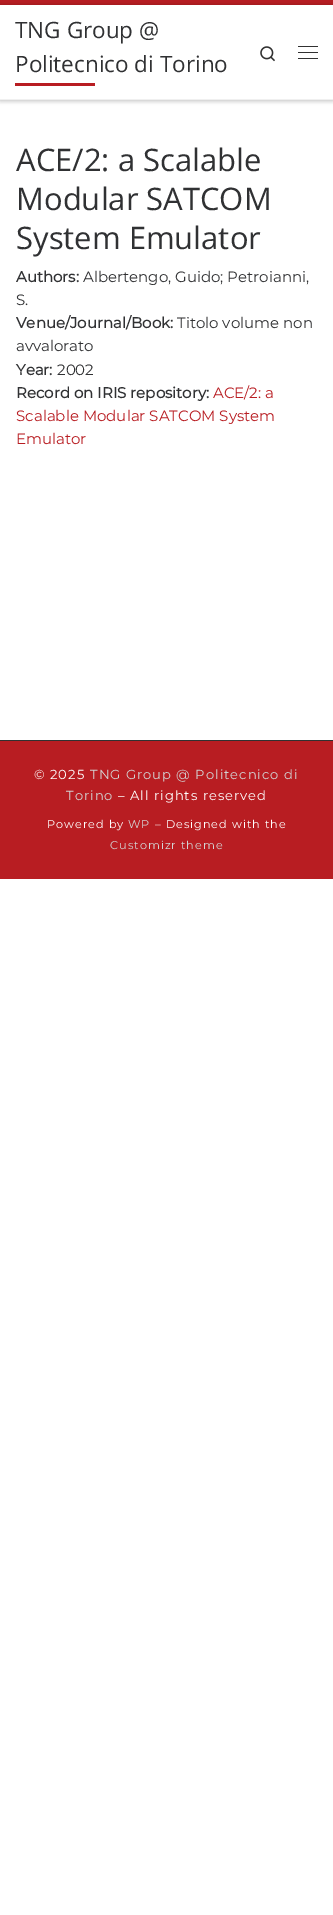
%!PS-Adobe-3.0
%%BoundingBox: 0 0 333 1915
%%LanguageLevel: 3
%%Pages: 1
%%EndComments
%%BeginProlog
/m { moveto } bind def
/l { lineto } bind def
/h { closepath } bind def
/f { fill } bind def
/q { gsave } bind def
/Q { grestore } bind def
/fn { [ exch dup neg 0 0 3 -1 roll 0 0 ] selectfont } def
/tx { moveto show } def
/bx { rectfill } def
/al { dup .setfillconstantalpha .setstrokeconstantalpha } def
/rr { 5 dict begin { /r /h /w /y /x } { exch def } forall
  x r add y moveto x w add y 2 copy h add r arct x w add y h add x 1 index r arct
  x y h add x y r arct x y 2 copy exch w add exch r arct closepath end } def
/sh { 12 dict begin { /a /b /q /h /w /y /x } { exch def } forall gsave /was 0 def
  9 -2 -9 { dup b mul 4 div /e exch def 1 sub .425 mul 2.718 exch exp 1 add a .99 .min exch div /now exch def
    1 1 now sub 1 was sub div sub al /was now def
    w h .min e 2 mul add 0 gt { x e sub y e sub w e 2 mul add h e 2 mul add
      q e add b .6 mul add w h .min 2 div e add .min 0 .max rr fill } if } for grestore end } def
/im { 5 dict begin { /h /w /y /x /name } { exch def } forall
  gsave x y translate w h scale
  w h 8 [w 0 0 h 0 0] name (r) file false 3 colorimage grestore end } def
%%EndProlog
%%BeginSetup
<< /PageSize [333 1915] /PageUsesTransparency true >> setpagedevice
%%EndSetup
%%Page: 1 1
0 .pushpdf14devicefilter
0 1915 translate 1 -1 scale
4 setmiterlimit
1 setgray
0 0 333 1915 bx
q
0 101 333 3 rectclip
0.4 setgray
0 2 333 101 0 1 0.08 sh
Q
0.722 0.114 0.133 setrgbcolor
0 0 333 5 bx
0.937 setgray
0 100 333 1 bx
q
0 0 m 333 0 l 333 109 l 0 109 l h 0 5 m 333 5 l 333 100 l 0 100 l h eoclip newpath
0 setgray
0 5 333 95 0 2.5 0.2 sh
Q
/OpenSans-Regular 22.5 fn
0.188 0.192 0.2 setrgbcolor
(TNG Group @) 15 38 tx
(Politecnico di Torino) 15 72 tx
0.722 0.114 0.133 setrgbcolor
15 83 80 3 bx
(image0.raw) 260 46 15 16 im
0.192 setgray
298 46 20 1 0.5 rr f
298 52 20 1 0.5 rr f
298 58 20 1 0.5 rr f
0.941 setgray
0 99 333 1 bx
/OpenSans-Regular 31 fn
0.188 0.192 0.2 setrgbcolor
(ACE/2: a Scalable) 16 171 tx
(Modular SATCOM) 16 210 tx
(System Emulator) 16 249 tx
/Montserrat-Bold 15 fn
(Authors:) 16 282 tx
/Montserrat-Thin 15 fn
(Albertengo, Guido; Petroianni,) 83 282 tx
(S.) 16 305 tx
/Montserrat-Bold 15 fn
(Venue/Journal/Book:) 16 328 tx
/Montserrat-Thin 15 fn
(Titolo volume non) 177 328 tx
(avvalorato) 16 351 tx
/Montserrat-Bold 15 fn
(Year:) 16 375 tx
/Montserrat-Thin 15 fn
(2002) 57 375 tx
/Montserrat-Bold 15 fn
(Record on IRIS repository:) 16 398 tx
/Montserrat-Thin 15 fn
0.722 0.114 0.133 setrgbcolor
(ACE/2: a) 213 398 tx
(Scalable Modular SATCOM System) 16 421 tx
(Emulator) 16 444 tx
0.192 setgray
0 740 333 1 bx
0.722 0.114 0.133 setrgbcolor
0 741 333 138 bx
/Montserrat-Thin 13.1 fn
1 setgray
34 779 m 1 0 (© 2025) ashow
0.827 setgray
90 779 m 1 0 (TNG Group @ Politecnico di) ashow
66 800 m 1 0 (Torino) ashow
1 setgray
118 800 m 1 0 (– All rights reserved) ashow
/Montserrat-Thin 11.25 fn
47 828 m 1 0 (Powered by) ashow
0.827 setgray
128 828 m 1 0 (WP) ashow
1 setgray
155 828 m 1 0 (– Designed with the) ashow
0.827 setgray
110 849 m 1 0 (Customizr theme) ashow
.poppdf14devicefilter showpage
%%EOF
